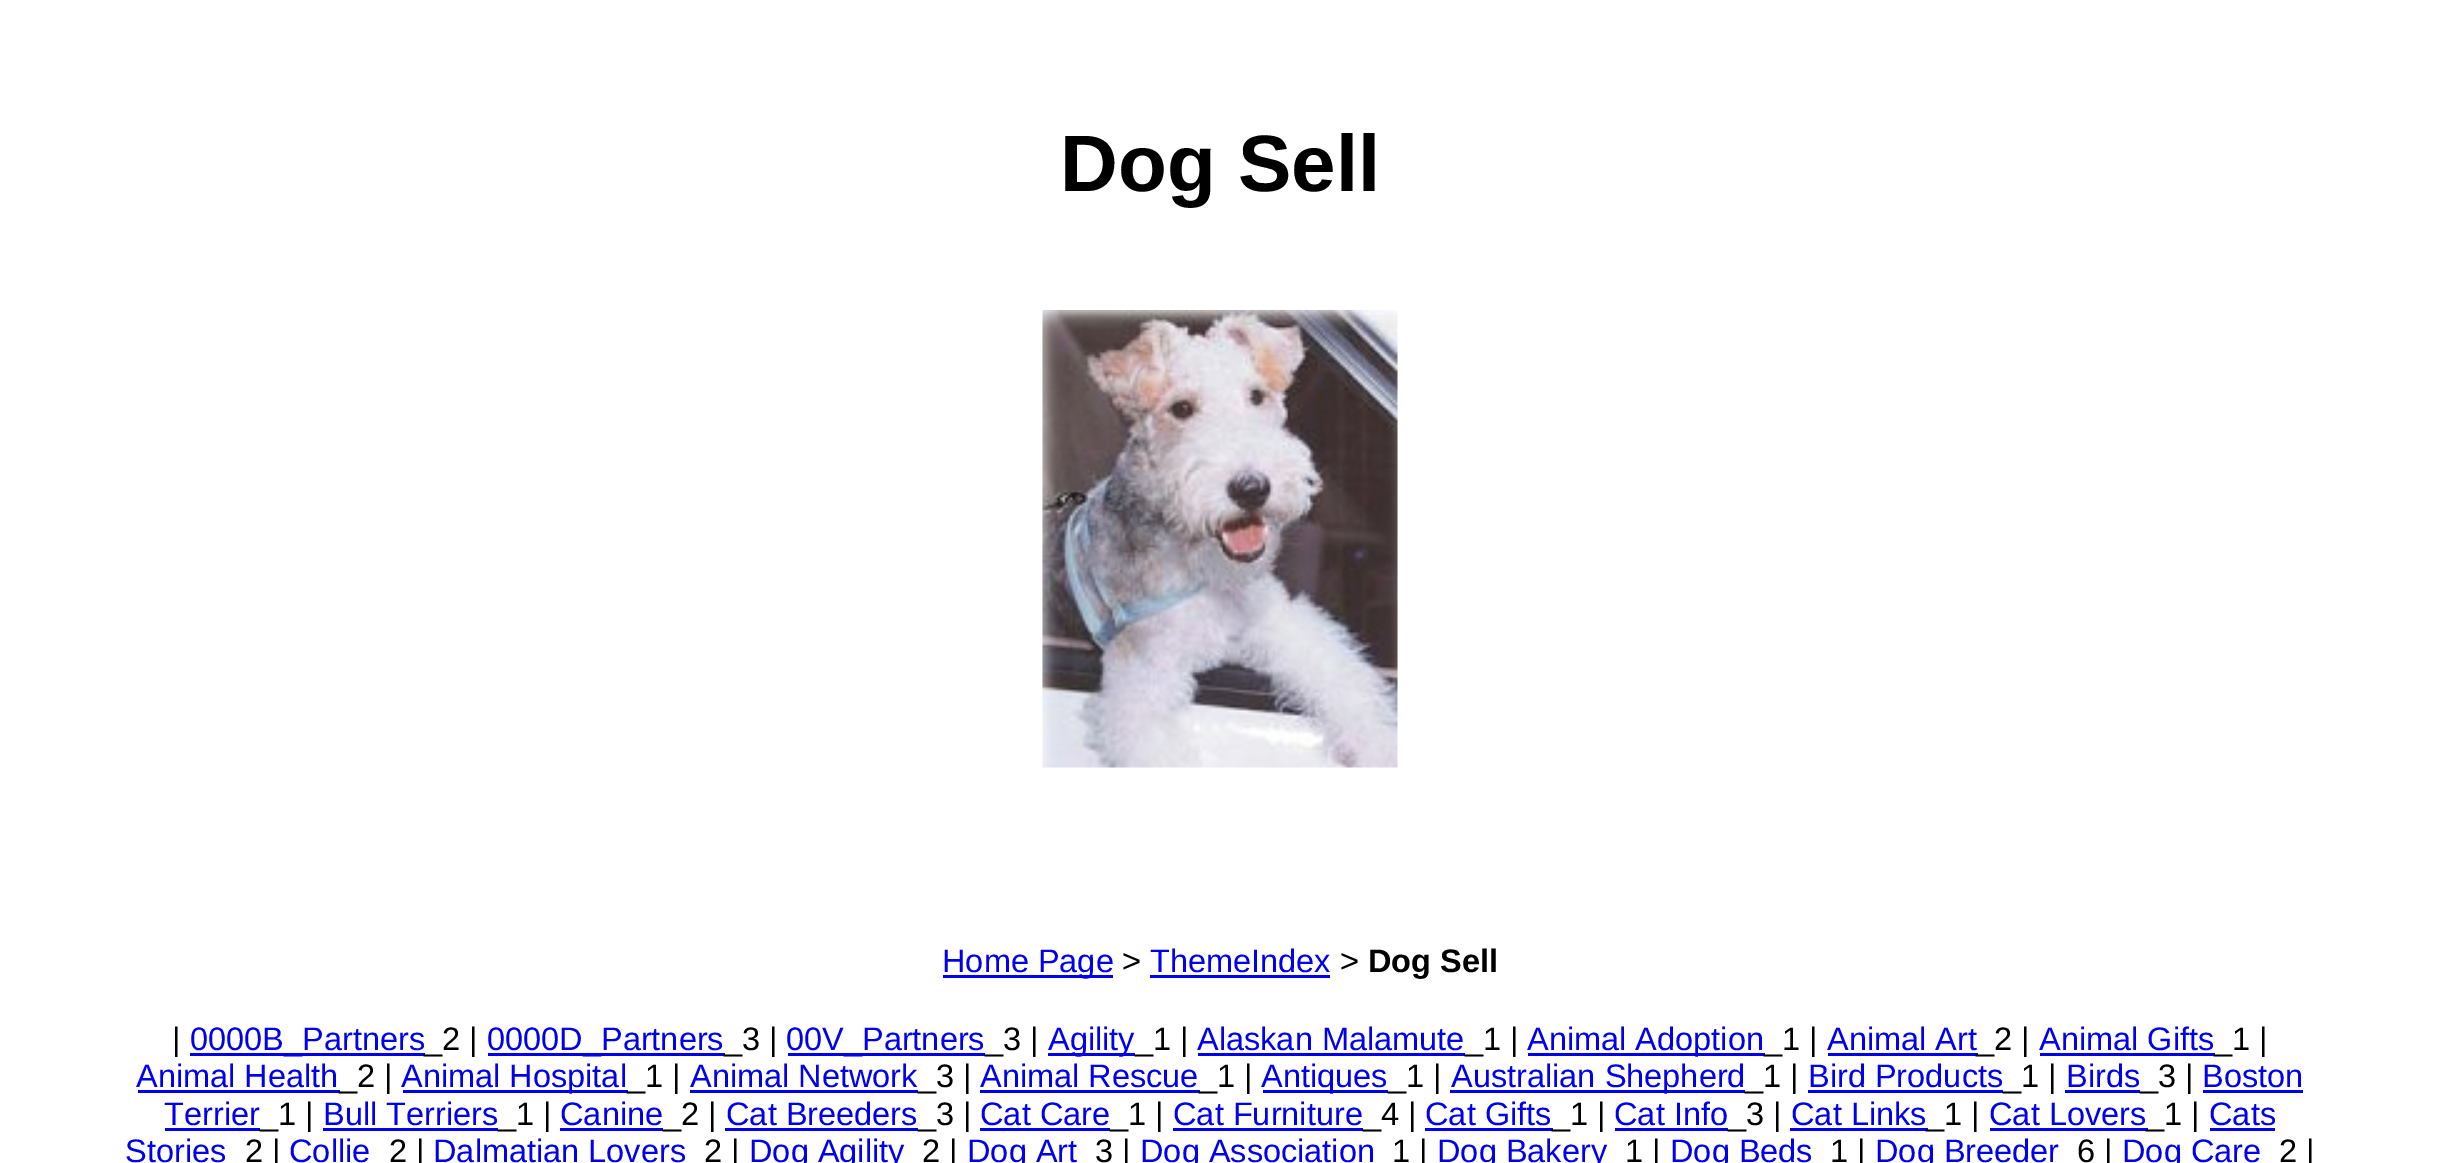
%!PS-Adobe-3.0
%%BoundingBox: 0 0 2439 1163
%%LanguageLevel: 3
%%Pages: 1
%%EndComments
%%BeginProlog
/fn { [ exch dup neg 0 0 3 -1 roll 0 0 ] selectfont } def
/tx { moveto show } def
/bx { rectfill } def
/im { 5 dict begin { /h /w /y /x /name } { exch def } forall
  gsave x y translate w h scale
  w h 8 [w 0 0 h 0 0] name (r) file false 3 colorimage grestore end } def
%%EndProlog
%%BeginSetup
<< /PageSize [2439 1163] >> setpagedevice
%%EndSetup
%%Page: 1 1
0 1163 translate 1 -1 scale
4 setmiterlimit
1 setgray
0 0 2439 1163 bx
/LiberationSans-Bold 80 fn
0 setgray
(Dog Sell) 1060 191 tx
(image0.raw) 1042 310 356 458 im
0 0 0.933 setrgbcolor
943 975 170 3 bx
/LiberationSans-Regular 32.5 fn
(Home Page) 942 972 tx
0 setgray
(>) 1122 972 tx
0 0 0.933 setrgbcolor
(ThemeIndex) 1150 972 tx
1150 975 180 3 bx
0 setgray
(>) 1340 972 tx
/LiberationSans-Bold 32.5 fn
(Dog Sell) 1368 972 tx
/LiberationSans-Regular 32.5 fn
(|) 172 1050 tx
0 0 0.933 setrgbcolor
190 1053 235 3 bx
(0000B_Partners) 190 1050 tx
0 setgray
(_2 |) 424 1050 tx
0 0 0.933 setrgbcolor
488 1053 237 3 bx
(0000D_Partners) 487 1050 tx
0 setgray
(_3 |) 724 1050 tx
0 0 0.933 setrgbcolor
788 1053 197 3 bx
(00V_Partners) 786 1050 tx
0 setgray
(_3 |) 985 1050 tx
0 0 0.933 setrgbcolor
1048 1053 87 3 bx
(Agility) 1048 1050 tx
0 setgray
(_1 |) 1135 1050 tx
0 0 0.933 setrgbcolor
(Alaskan Malamute) 1197 1050 tx
1198 1053 267 3 bx
0 setgray
(_1 |) 1465 1050 tx
0 0 0.933 setrgbcolor
1528 1053 237 3 bx
(Animal Adoption) 1527 1050 tx
0 setgray
(_1 |) 1764 1050 tx
0 0 0.933 setrgbcolor
(Animal Art) 1827 1050 tx
1828 1053 150 3 bx
0 setgray
(_2 |) 1976 1050 tx
0 0 0.933 setrgbcolor
(Animal Gifts) 2039 1050 tx
2040 1053 175 3 bx
0 setgray
(_1 |) 2214 1050 tx
0 0 0.933 setrgbcolor
(Animal Health) 136 1087 tx
138 1090 202 3 bx
0 setgray
(_2 |) 339 1087 tx
0 0 0.933 setrgbcolor
403 1090 225 3 bx
(Animal Hospital) 401 1087 tx
0 setgray
(_1 |) 627 1087 tx
0 0 0.933 setrgbcolor
(Animal Network) 690 1087 tx
690 1090 228 3 bx
0 setgray
(_3 |) 918 1087 tx
0 0 0.933 setrgbcolor
(Animal Rescue) 980 1087 tx
980 1090 220 3 bx
0 setgray
(_1 |) 1199 1087 tx
0 0 0.933 setrgbcolor
1263 1090 125 3 bx
(Antiques) 1261 1087 tx
0 setgray
(_1 |) 1388 1087 tx
0 0 0.933 setrgbcolor
1450 1090 295 3 bx
(Australian Shepherd) 1451 1087 tx
0 setgray
(_1 |) 1745 1087 tx
0 0 0.933 setrgbcolor
(Bird Products) 1808 1087 tx
1808 1090 195 3 bx
0 setgray
(_1 |) 2003 1087 tx
0 0 0.933 setrgbcolor
(Birds) 2066 1087 tx
2065 1090 75 3 bx
0 setgray
(_3 |) 2140 1087 tx
0 0 0.933 setrgbcolor
(Boston) 2202 1087 tx
2203 1090 100 3 bx
(Terrier) 164 1125 tx
165 1128 95 3 bx
0 setgray
(_1 |) 260 1125 tx
0 0 0.933 setrgbcolor
(Bull Terriers) 323 1125 tx
323 1128 175 3 bx
0 setgray
(_1 |) 498 1125 tx
0 0 0.933 setrgbcolor
(Canine) 560 1125 tx
560 1128 103 3 bx
0 setgray
(_2 |) 663 1125 tx
0 0 0.933 setrgbcolor
(Cat Breeders) 726 1125 tx
725 1128 193 3 bx
0 setgray
(_3 |) 918 1125 tx
0 0 0.933 setrgbcolor
(Cat Care) 980 1125 tx
980 1128 130 3 bx
0 setgray
(_1 |) 1110 1125 tx
0 0 0.933 setrgbcolor
(Cat Furniture) 1173 1125 tx
1173 1128 190 3 bx
0 setgray
(_4 |) 1363 1125 tx
0 0 0.933 setrgbcolor
(Cat Gifts) 1425 1125 tx
1425 1128 128 3 bx
0 setgray
(_1 |) 1552 1125 tx
0 0 0.933 setrgbcolor
(Cat Info) 1614 1125 tx
1615 1128 113 3 bx
0 setgray
(_3 |) 1728 1125 tx
0 0 0.933 setrgbcolor
(Cat Links) 1791 1125 tx
1790 1128 138 3 bx
0 setgray
(_1 |) 1926 1125 tx
0 0 0.933 setrgbcolor
(Cat Lovers) 1989 1125 tx
1990 1128 158 3 bx
0 setgray
(_1 |) 2146 1125 tx
0 0 0.933 setrgbcolor
(Cats) 2209 1125 tx
2210 1128 65 3 bx
(Stories) 125 1162 tx
0 setgray
(2 |) 245 1162 tx
0 0 0.933 setrgbcolor
(Collie) 289 1162 tx
0 setgray
(2 |) 389 1162 tx
0 0 0.933 setrgbcolor
(Dalmatian Lovers) 433 1162 tx
0 setgray
(2 |) 704 1162 tx
0 0 0.933 setrgbcolor
(Dog Agility) 749 1162 tx
0 setgray
(2 |) 922 1162 tx
0 0 0.933 setrgbcolor
(Dog Art) 967 1162 tx
0 setgray
(3 |) 1095 1162 tx
0 0 0.933 setrgbcolor
(Dog Association) 1140 1162 tx
0 setgray
(1 |) 1392 1162 tx
0 0 0.933 setrgbcolor
(Dog Bakery) 1437 1162 tx
0 setgray
(1 |) 1625 1162 tx
0 0 0.933 setrgbcolor
(Dog Beds) 1670 1162 tx
0 setgray
(1 |) 1830 1162 tx
0 0 0.933 setrgbcolor
(Dog Breeder) 1875 1162 tx
0 setgray
(6 |) 2077 1162 tx
0 0 0.933 setrgbcolor
(Dog Care) 2122 1162 tx
0 setgray
(2 |) 2279 1162 tx
showpage
%%EOF
